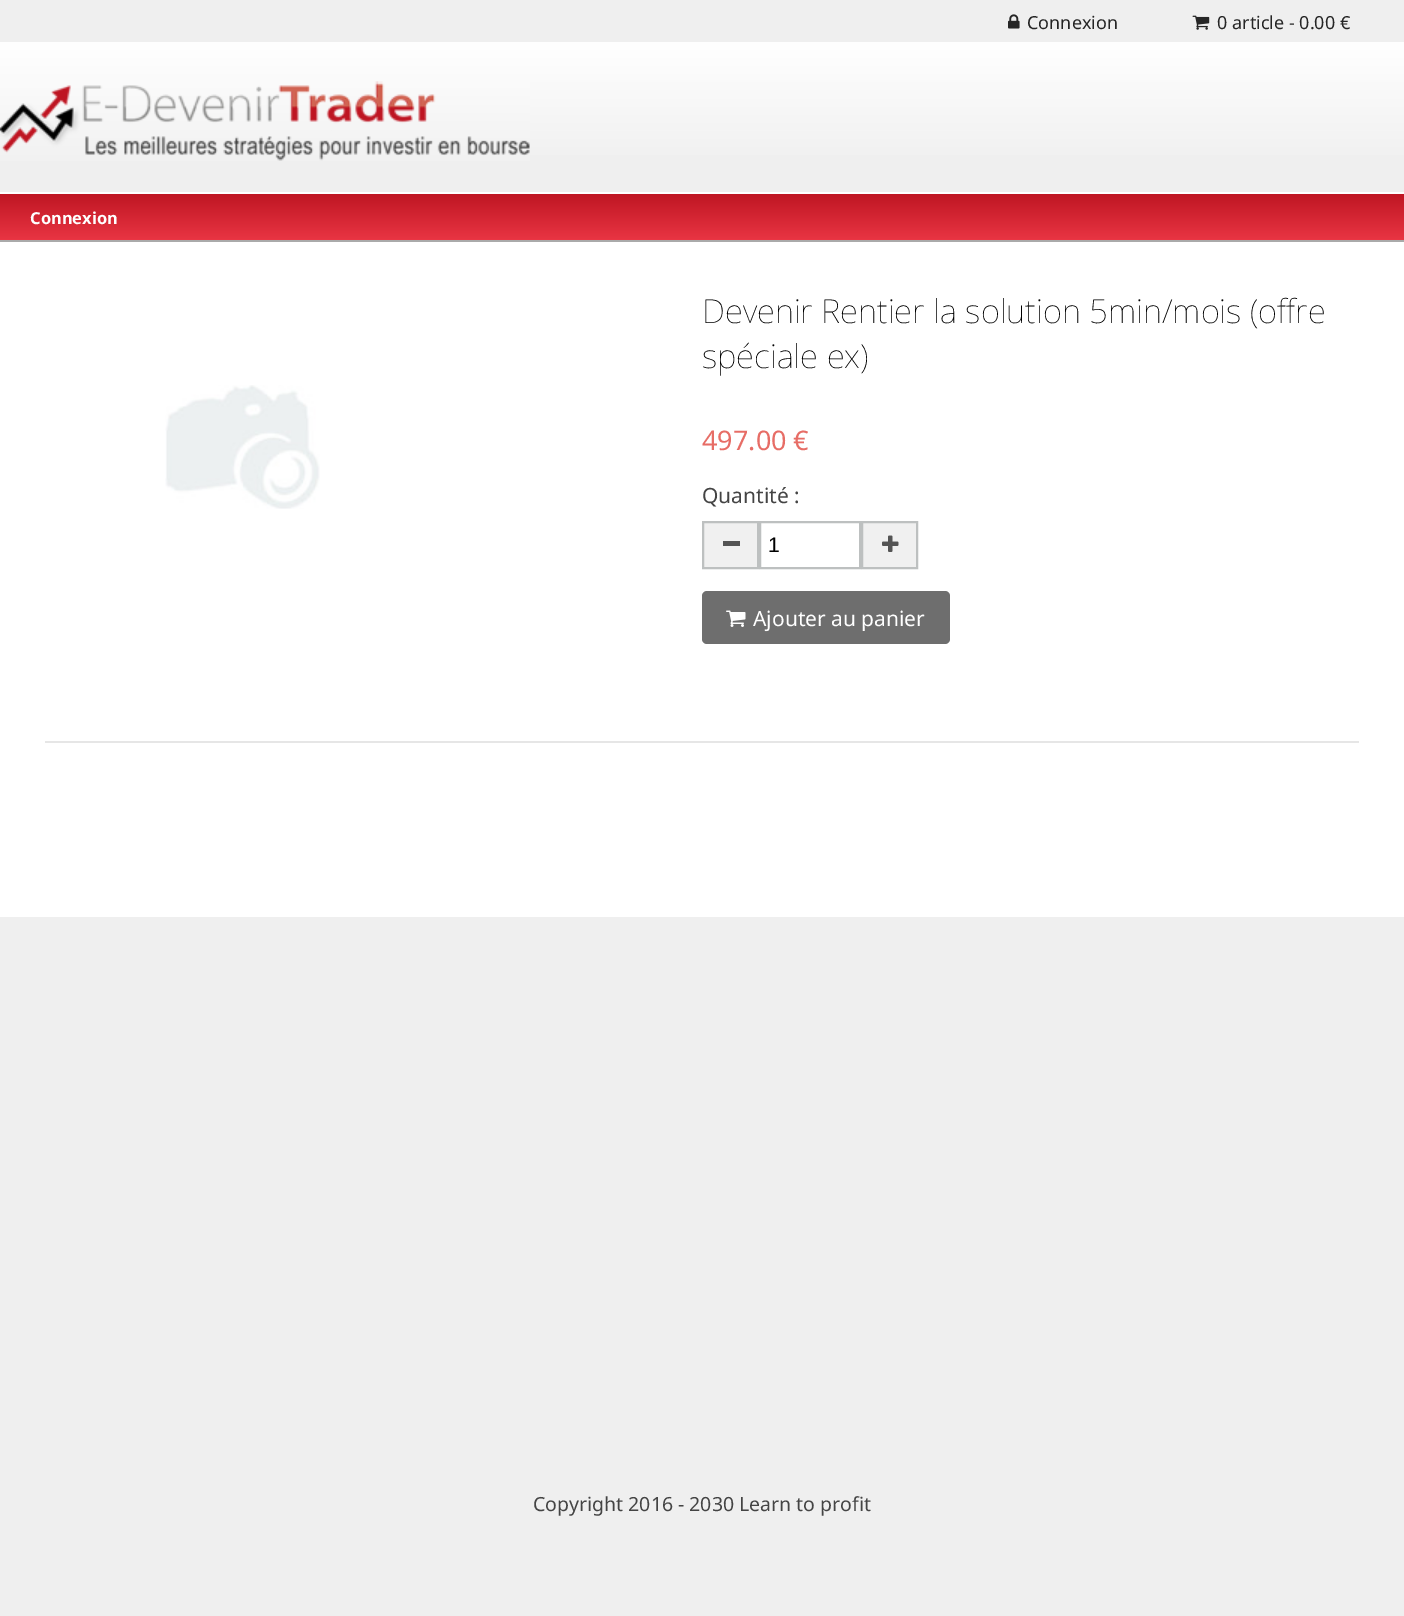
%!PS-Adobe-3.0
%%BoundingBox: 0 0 1404 1616
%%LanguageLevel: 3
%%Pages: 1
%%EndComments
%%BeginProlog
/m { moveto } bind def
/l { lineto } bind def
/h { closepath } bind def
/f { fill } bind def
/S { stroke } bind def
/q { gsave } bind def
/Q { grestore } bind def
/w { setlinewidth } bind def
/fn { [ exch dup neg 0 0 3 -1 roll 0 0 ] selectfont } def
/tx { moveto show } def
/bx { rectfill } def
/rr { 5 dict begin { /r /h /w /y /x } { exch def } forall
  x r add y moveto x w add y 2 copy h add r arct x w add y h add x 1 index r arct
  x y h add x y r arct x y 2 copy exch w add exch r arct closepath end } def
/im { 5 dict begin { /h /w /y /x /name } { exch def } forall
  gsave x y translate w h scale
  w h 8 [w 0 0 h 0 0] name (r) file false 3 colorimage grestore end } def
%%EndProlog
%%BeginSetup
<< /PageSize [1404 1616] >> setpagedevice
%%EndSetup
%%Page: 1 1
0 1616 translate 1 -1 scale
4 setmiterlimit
0.937 setgray
0 0 1404 1616 bx
(image0.raw) 1008 14 12 15 im
/NotoSans-Regular 18 fn
0.149 setgray
(Connexion) 1027 29 tx
(image1.raw) 1192 15 18 15 im
(0 article - 0.00 €) 1217 29 tx
q 0 42 m 1404 42 l 1404 155 l 0 155 l h clip newpath
<< /ShadingType 2 /ColorSpace /DeviceRGB /Coords [702 42 702 192] /Extend [true true] /Function << /FunctionType 2 /Domain [0 1] /C0 [1 1 1] /C1 [0.929 0.929 0.929] /N 1 >> >> shfill Q
(image2.raw) 0 81 530 80 im
q 0 194 m 1404 194 l 1404 240 l 0 240 l h clip newpath
<< /ShadingType 2 /ColorSpace /DeviceRGB /Coords [702 193 702 240] /Extend [true true] /Function << /FunctionType 2 /Domain [0 1] /C0 [0.745 0.082 0.133] /C1 [0.914 0.208 0.263] /N 1 >> >> shfill Q
1 setgray
0 192 1404 2 bx
0.667 setgray
0 240 1404 2 bx
/NotoSans-Bold 16.5 fn
1 setgray
(Connexion) 30 224 tx
0 242 1404 675 bx
(image3.raw) 165 385 155 124 im
/NotoSans-Thin 33 fn
0 setgray
(Devenir Rentier la solution 5min/mois \(offre) 702 323 tx
(spéciale ex\)) 702 368 tx
/NotoSans-Regular 27 fn
0.906 0.427 0.4 setrgbcolor
(497.00 €) 702 450 tx
/NotoSans-Regular 21 fn
0.267 setgray
(Quantité :) 702 503 tx
0.941 setgray
703 522 m 758 522 l 758 568 l 703 568 l h q f Q
0.741 0.753 0.753 setrgbcolor
2 w
S
0.329 setgray
723 541 17 5 bx
0.741 0.753 0.753 setrgbcolor
760 522 100 46 rectstroke
/LiberationSans-Regular 21 fn
0 setgray
(1) 768 552 tx
0.941 setgray
862 522 m 917 522 l 917 568 l 862 568 l h q f Q
0.741 0.753 0.753 setrgbcolor
S
(image4.raw) 882 535 17 17 im
0.431 setgray
702 591 248 53 5 rr f
(image5.raw) 726 610 20 17 im
/NotoSans-Regular 21 fn
1 setgray
(Ajouter au panier) 753 626 tx
0.902 setgray
45 741 1314 2 bx
/NotoSans-Regular 19.5 fn
0.267 setgray
(Copyright 2016 - 2030 Learn to profit) 533 1511 tx
showpage
%%EOF
